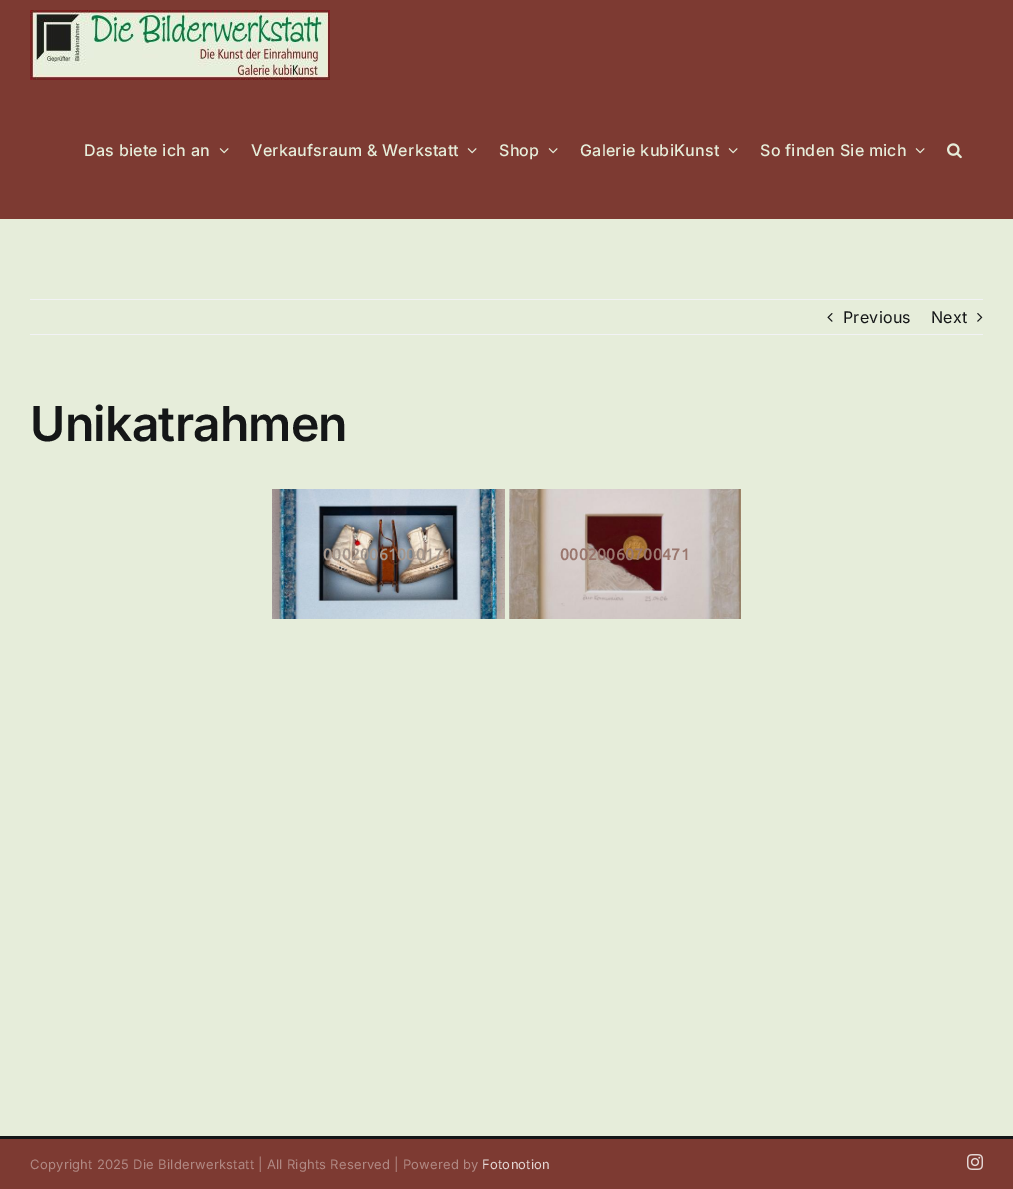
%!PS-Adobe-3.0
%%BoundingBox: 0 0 1013 1189
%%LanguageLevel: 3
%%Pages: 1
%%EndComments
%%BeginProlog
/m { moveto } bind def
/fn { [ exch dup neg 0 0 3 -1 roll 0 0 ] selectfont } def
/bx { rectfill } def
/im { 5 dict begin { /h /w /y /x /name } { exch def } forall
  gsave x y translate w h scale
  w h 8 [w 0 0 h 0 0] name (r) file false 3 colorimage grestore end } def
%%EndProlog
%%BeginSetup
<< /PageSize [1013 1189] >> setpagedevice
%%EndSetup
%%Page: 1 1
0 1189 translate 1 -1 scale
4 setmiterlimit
0.902 0.929 0.855 setrgbcolor
0 0 1013 1189 bx
0.49 0.227 0.196 setrgbcolor
0 0 1013 219 bx
(image0.raw) 30 10 300 70 im
/Inter-Medium 16 fn
0.902 0.929 0.855 setrgbcolor
84 156 m 0.25 0 (Das biete ich an) ashow
(image1.raw) 219 148 10 6 im
251 156 m 0.25 0 (Verkaufsraum & Werkstatt) ashow
(image1.raw) 467 148 10 6 im
499 156 m 0.25 0 (Shop) ashow
(image1.raw) 548 148 10 6 im
580 156 m 0.25 0 (Galerie kubiKunst) ashow
(image1.raw) 728 148 10 6 im
760 156 m 0.25 0 (So finden Sie mich) ashow
(image1.raw) 915 148 10 6 im
(image2.raw) 947 143 15 16 im
0.949 0.953 0.961 setrgbcolor
30 299 953 1 bx
30 334 953 1 bx
(image3.raw) 827 313 6 9 im
/Inter-Regular 16 fn
0.078 0.086 0.09 setrgbcolor
843 323 m 0.25 0 (Previous) ashow
931 323 m 0.25 0 (Next) ashow
(image4.raw) 977 313 6 9 im
/Inter-SemiBold 48 fn
30 441 m -0.75 0 (Unikatrahmen) ashow
(image5.raw) 272 489 233 130 im
/Ubuntu-Bold 16 fn
0.639 0.588 0.549 setrgbcolor
323 560 m 0.25 0 (00020061000171) ashow
(image6.raw) 509 489 232 130 im
0.604 0.467 0.431 setrgbcolor
560 560 m 0.25 0 (00020060700471) ashow
0.49 0.227 0.196 setrgbcolor
0 1139 1013 50 bx
0.078 0.086 0.09 setrgbcolor
0 1136 1013 3 bx
/Inter-Regular 13 fn
0.694 0.537 0.518 setrgbcolor
30 1169 m 0.25 0 (Copyright 2025 Die Bilderwerkstatt | All Rights Reserved | Powered by) ashow
0.898 0.847 0.839 setrgbcolor
482 1169 m 0.25 0 (Fotonotion) ashow
(image7.raw) 967 1154 16 16 im
showpage
%%EOF
